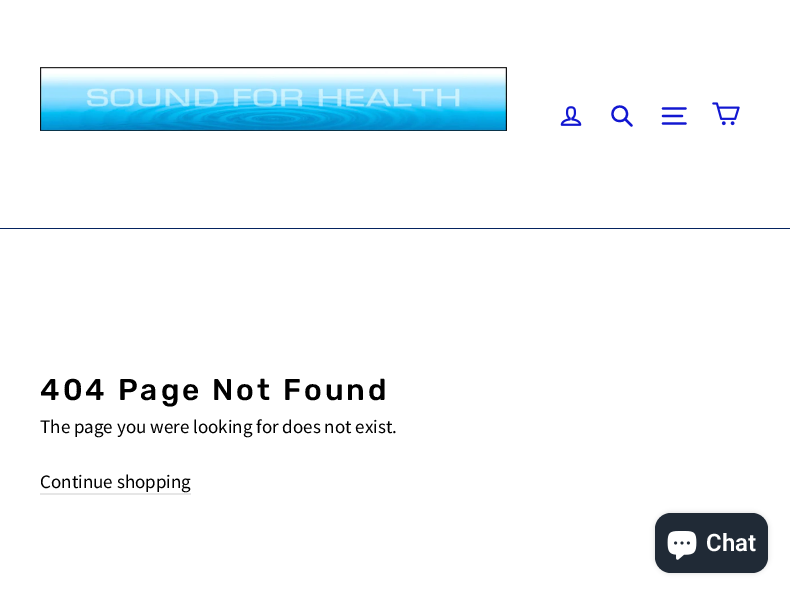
%!PS-Adobe-3.0
%%BoundingBox: 0 0 790 594
%%LanguageLevel: 3
%%Pages: 1
%%EndComments
%%BeginProlog
/m { moveto } bind def
/l { lineto } bind def
/c { curveto } bind def
/h { closepath } bind def
/f { fill } bind def
/S { stroke } bind def
/w { setlinewidth } bind def
/fn { [ exch dup neg 0 0 3 -1 roll 0 0 ] selectfont } def
/tx { moveto show } def
/bx { rectfill } def
/al { dup .setfillconstantalpha .setstrokeconstantalpha } def
/rr { 5 dict begin { /r /h /w /y /x } { exch def } forall
  x r add y moveto x w add y 2 copy h add r arct x w add y h add x 1 index r arct
  x y h add x y r arct x y 2 copy exch w add exch r arct closepath end } def
/sh { 12 dict begin { /a /b /q /h /w /y /x } { exch def } forall gsave /was 0 def
  9 -2 -9 { dup b mul 4 div /e exch def 1 sub .425 mul 2.718 exch exp 1 add a .99 .min exch div /now exch def
    1 1 now sub 1 was sub div sub al /was now def
    w h .min e 2 mul add 0 gt { x e sub y e sub w e 2 mul add h e 2 mul add
      q e add b .6 mul add w h .min 2 div e add .min 0 .max rr fill } if } for grestore end } def
/im { 5 dict begin { /h /w /y /x /name } { exch def } forall
  gsave x y translate w h scale
  w h 8 [w 0 0 h 0 0] name (r) file false 3 colorimage grestore end } def
%%EndProlog
%%BeginSetup
<< /PageSize [790 594] /PageUsesTransparency true >> setpagedevice
%%EndSetup
%%Page: 1 1
0 .pushpdf14devicefilter
0 594 translate 1 -1 scale
4 setmiterlimit
1 setgray
0 0 790 594 bx
0.016 0.137 0.376 setrgbcolor
0 228 790 1 bx
(image0.raw) 40 67 467 64 im
(image1.raw) 560 106 22 20 im
0.071 0.09 0.82 setrgbcolor
2.2 w
1 setlinecap
1 setlinejoin
627 114 m 627 123.5 612.5 123.5 612.5 114 c 612.5 104 627 104 627 114 c h 631.5 125.5 m 625 119 l S
663 108.5 m 685.5 108.5 l 663 116 m 682 116 l 663 123.5 m 685.5 123.5 l S
(image2.raw) 712 102 28 24 im
/Rubik-Light 30 fn
0 setgray
40 400 m 3 0 (404 Page Not Found) ashow
/SourceSansPro-Regular 19 fn
(The page you were looking for does not exist.) 40 433 tx
(Continue shopping) 40 488 tx
0.902 setgray
40 493 151 2 bx
0 setgray
655 513 113 60 16 2.5 0.15 sh
0.125 0.165 0.212 setrgbcolor
655 513 113 60 16 rr f
(image3.raw) 667 531 30 29 im
/Roboto-SemiBold 24 fn
1 setgray
(Chat) 706 551 tx
.poppdf14devicefilter showpage
%%EOF
